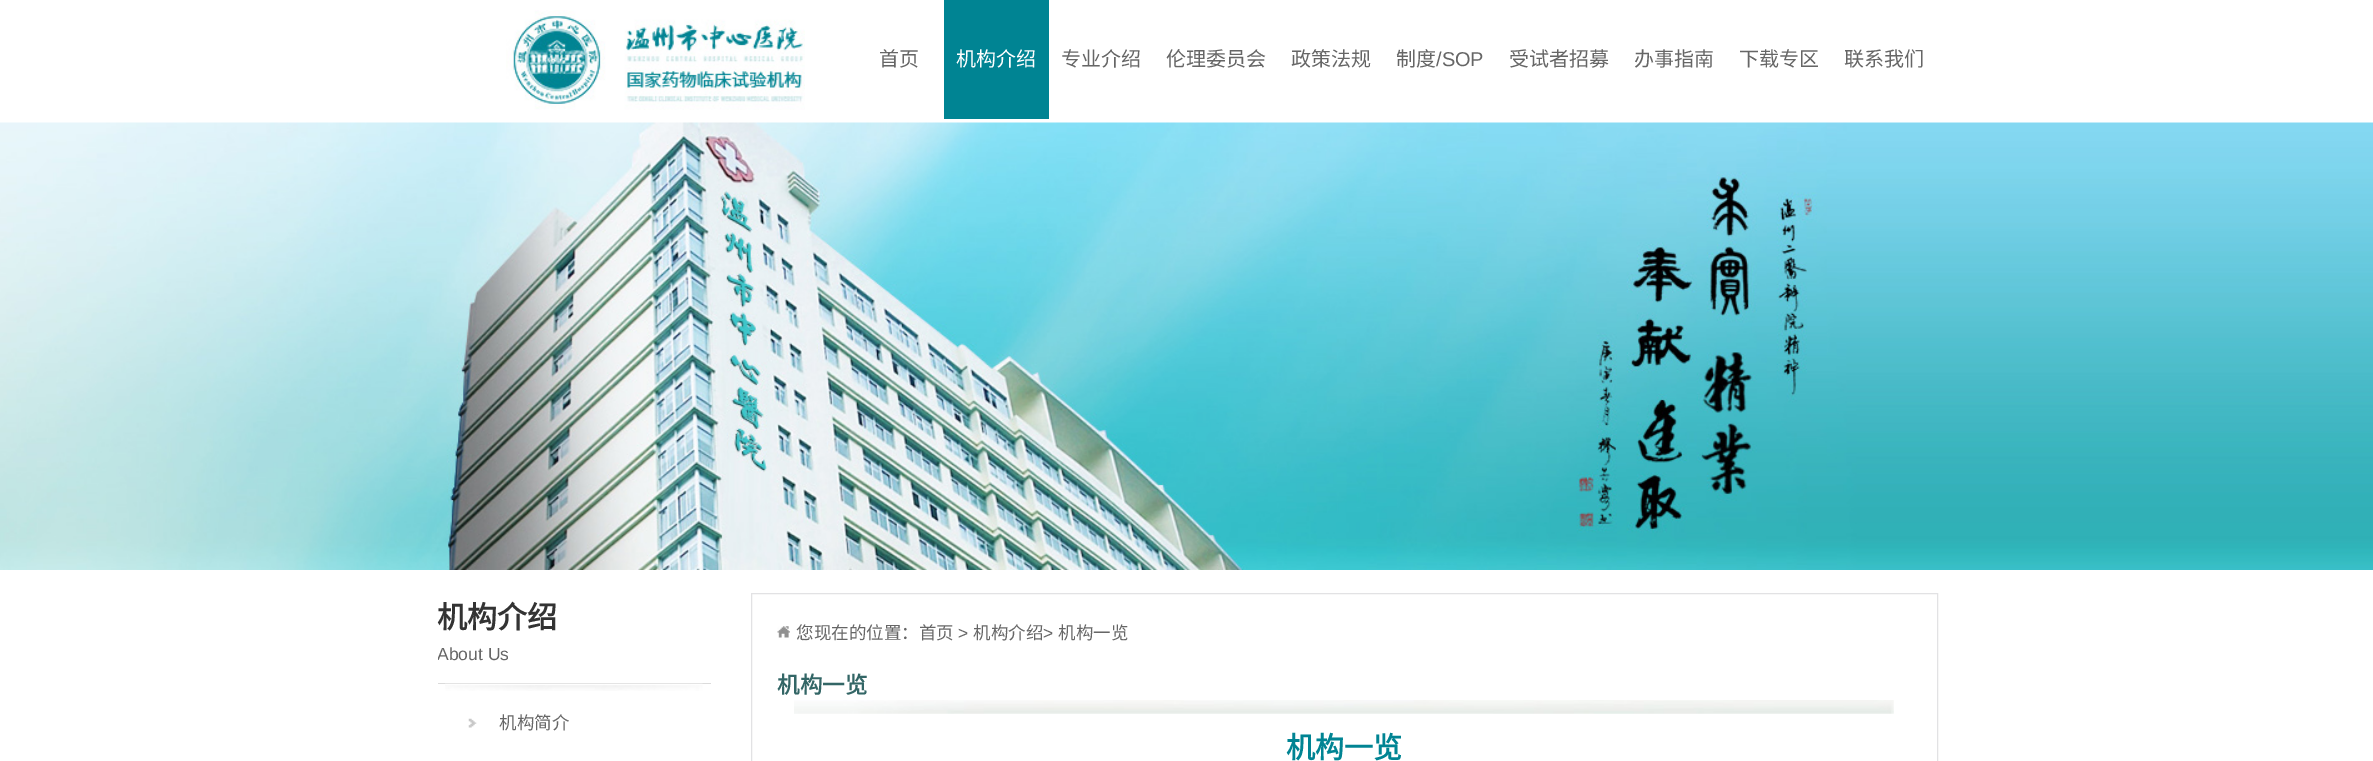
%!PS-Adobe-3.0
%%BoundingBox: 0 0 2373 761
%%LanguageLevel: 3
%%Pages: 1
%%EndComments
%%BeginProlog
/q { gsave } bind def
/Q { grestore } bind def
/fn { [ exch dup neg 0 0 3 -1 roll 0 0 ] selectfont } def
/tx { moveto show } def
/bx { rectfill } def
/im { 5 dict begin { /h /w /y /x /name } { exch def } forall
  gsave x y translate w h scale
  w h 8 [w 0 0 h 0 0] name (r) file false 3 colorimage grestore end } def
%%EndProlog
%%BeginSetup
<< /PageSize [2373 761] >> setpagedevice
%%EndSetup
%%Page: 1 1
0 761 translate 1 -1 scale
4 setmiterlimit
1 setgray
0 0 2373 761 bx
(image0.raw) 506 10 299 100 im
/NotoSansCJKSC-Regular 20 fn
0.4 setgray
(首页) 879 66 tx
0 0.518 0.576 setrgbcolor
944 0 105 119 bx
1 setgray
(机构介绍) 956 66 tx
0.4 setgray
(专业介绍) 1061 66 tx
(伦理委员会) 1166 66 tx
(政策法规) 1291 66 tx
(制度) 1396 66 tx
/LiberationSans-Regular 20 fn
(/SOP) 1436 66 tx
/NotoSansCJKSC-Regular 20 fn
(受试者招募) 1509 66 tx
(办事指南) 1634 66 tx
(下载专区) 1739 66 tx
(联系我们) 1844 66 tx
(image1.raw) 0 122 2373 448 im
0.859 setgray
438 683 273 1 bx
/NotoSansCJKSC-Bold 30 fn
0.2 setgray
(机构介绍) 437 628 tx
q
438 593 273 90 rectclip
/LiberationSans-Regular 17.5 fn
0.4 setgray
(About Us) 437 660 tx
Q
(image2.raw) 445 683 258 8 im
(image3.raw) 468 718 9 10 im
/NotoSansCJKSC-Regular 17.5 fn
0.4 setgray
(机构简介) 499 729 tx
0.886 0.886 0.894 setrgbcolor
751.5 593.5 1186 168 rectstroke
(image4.raw) 777 626 13 12 im
0.4 setgray
(您现在的位置：首页) 796 639 tx
/LiberationSans-Regular 17.5 fn
(>) 958 639 tx
/NotoSansCJKSC-Regular 17.5 fn
(机构介绍) 973 639 tx
/LiberationSans-Regular 17.5 fn
(>) 1043 639 tx
/NotoSansCJKSC-Regular 17.5 fn
(机构一览) 1058 639 tx
(image5.raw) 794 700 1100 14 im
/NotoSansCJKSC-Bold 22.5 fn
0.2 0.4 0.4 setrgbcolor
(机构一览) 777 693 tx
/NotoSansCJKSC-Bold 29 fn
0 0.518 0.576 setrgbcolor
(机构一览) 1286 758 tx
showpage
%%EOF
